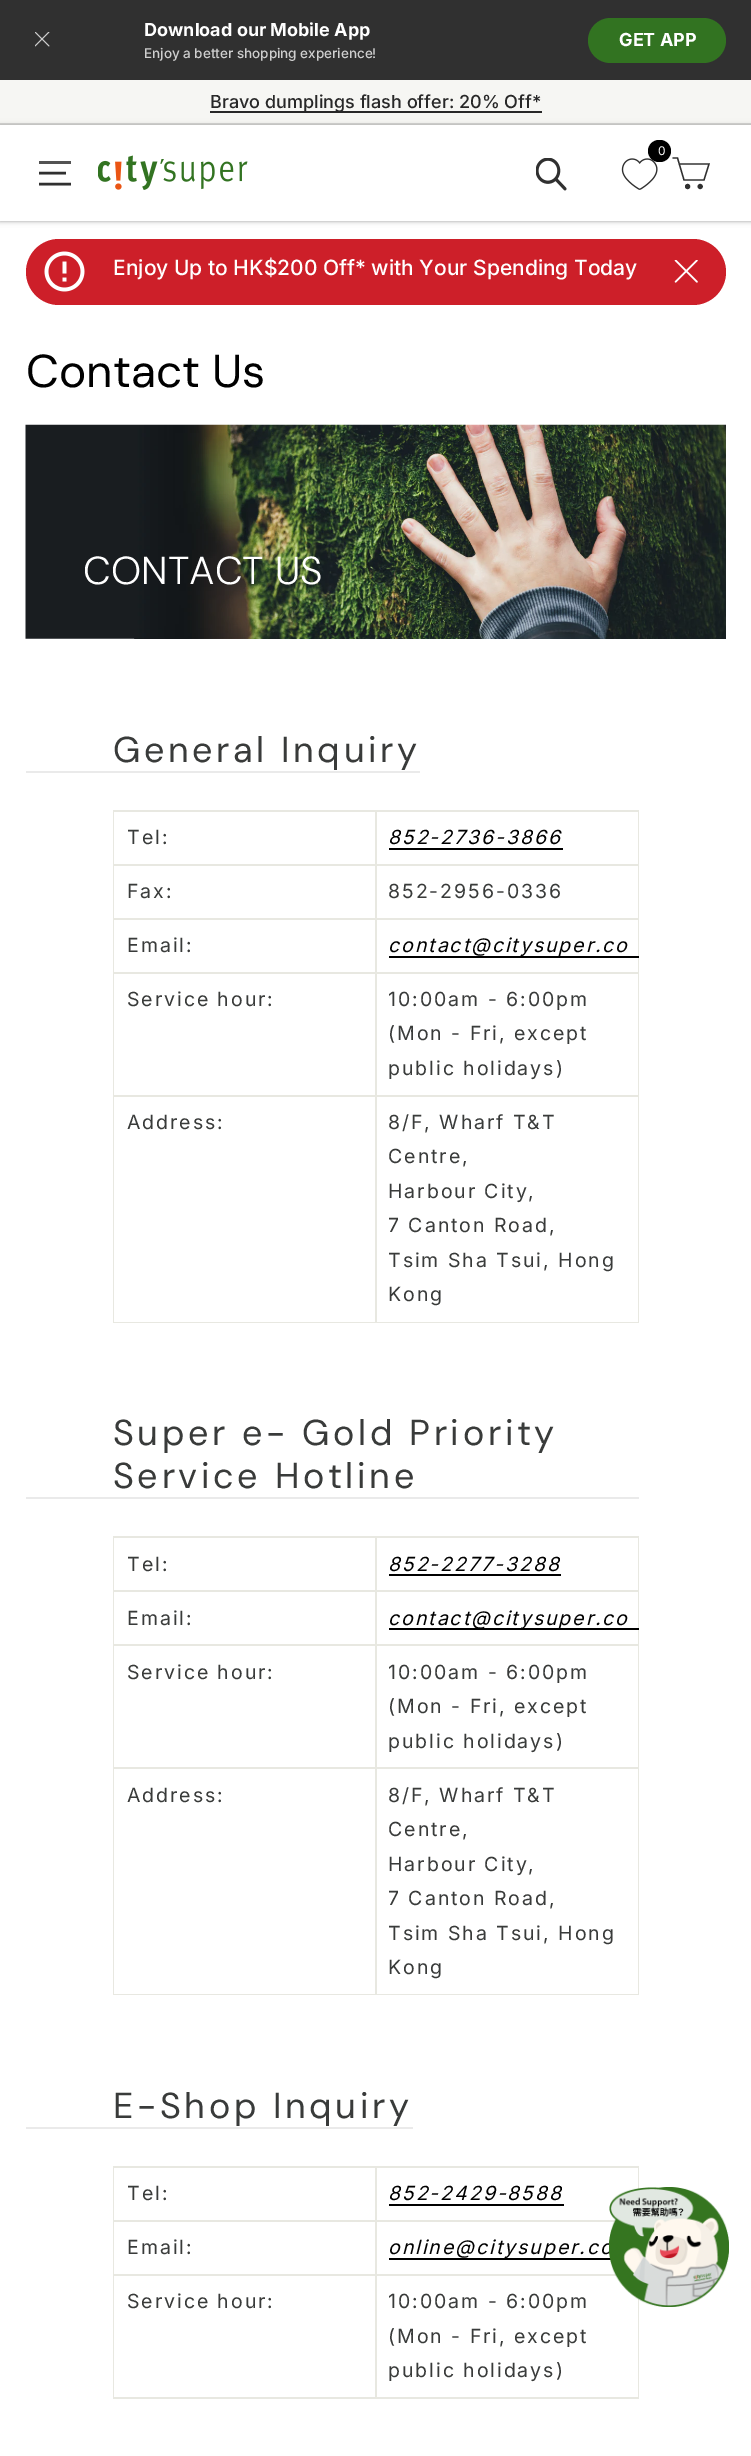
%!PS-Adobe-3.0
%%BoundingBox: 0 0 751 2456
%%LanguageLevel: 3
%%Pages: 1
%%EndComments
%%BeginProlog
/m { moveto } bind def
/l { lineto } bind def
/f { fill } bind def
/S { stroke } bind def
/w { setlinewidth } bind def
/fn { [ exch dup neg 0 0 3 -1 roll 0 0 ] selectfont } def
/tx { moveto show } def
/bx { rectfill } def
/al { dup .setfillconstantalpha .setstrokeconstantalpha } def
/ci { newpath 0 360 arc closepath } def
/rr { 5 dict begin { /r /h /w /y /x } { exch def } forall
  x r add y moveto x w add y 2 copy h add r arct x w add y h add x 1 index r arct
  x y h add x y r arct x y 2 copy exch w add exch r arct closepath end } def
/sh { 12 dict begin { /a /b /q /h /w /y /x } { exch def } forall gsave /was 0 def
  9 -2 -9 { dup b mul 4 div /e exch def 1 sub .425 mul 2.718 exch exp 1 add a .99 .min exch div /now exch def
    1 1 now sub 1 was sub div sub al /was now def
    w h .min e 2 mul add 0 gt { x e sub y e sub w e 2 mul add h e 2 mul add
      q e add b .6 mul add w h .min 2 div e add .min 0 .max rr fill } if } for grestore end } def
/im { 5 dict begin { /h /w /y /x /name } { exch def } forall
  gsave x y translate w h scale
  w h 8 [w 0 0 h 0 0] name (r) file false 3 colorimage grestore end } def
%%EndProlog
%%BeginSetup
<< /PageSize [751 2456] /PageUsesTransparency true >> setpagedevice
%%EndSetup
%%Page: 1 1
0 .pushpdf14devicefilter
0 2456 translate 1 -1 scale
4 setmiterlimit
1 setgray
0 0 751 2456 bx
0.188 setgray
0 0 751 80 bx
(image0.raw) 35 32 15 15 im
/Inter-Bold 18 fn
1 setgray
(Download our Mobile App) 144 36 tx
/Inter-Medium 13.5 fn
0.812 setgray
(Enjoy a better shopping experience!) 144 58 tx
0.196 0.451 0.129 setrgbcolor
588 18 138 45 22.5 rr f
/Inter-Bold 18 fn
1 setgray
(GET APP) 619 46 tx
0.965 0.965 0.953 setrgbcolor
0 80 751 43 bx
0.157 setgray
210 111 332 2 bx
/Inter-Medium 18 fn
(Bravo dumplings flash offer: 20% Off*) 210 108 tx
0.843 0.843 0.835 setrgbcolor
0 123 751 2 bx
0 setgray
0 125 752 96 0 1.5 0.1 sh
0 125 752 96 0 3 0.1 sh
0 150 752 71 0 1.5 0.1 sh
0 150 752 71 0 3 0.1 sh
1 setgray
0 125 751 96 bx
(image1.raw) 621 158 37 32 im
0 setgray
648 140 23 22 11 rr f
/Inter-Regular 12 fn
1 setgray
(0) 658 155 tx
0.325 setgray
39 161 32 3 bx
0.188 setgray
2.5 w
39 173 m 66 173 l 39 184 m 71 184 l S
(image2.raw) 536 158 31 33 im
1.3 w
679.5 164 m 709 164 l 704 180 l 684 180 l 677.5 158 l 672.5 158 l S
2.5 w
687.6 186.5 1.3 ci S
700.2 186.5 1.3 ci S
(image3.raw) 98 155 150 35 im
0.804 0.122 0.161 setrgbcolor
26 239 700 66 33 rr f
(image4.raw) 44 251 41 41 im
/Inter-Medium 21 fn
1 setgray
(Enjoy Up to HK$200 Off* with Your Spending Today) 113 275 tx
(image5.raw) 674 260 24 23 im
/DMSans-Regular 46 fn
0 setgray
(Contact Us) 26 387 tx
(image6.raw) 25 424 701 215 im
/DMSans-Light 39 fn
1 setgray
(CONTACT US) 83 584 tx
/DMSans-Regular 36 fn
0.224 0.231 0.227 setrgbcolor
113 762 m 3.6 0 (General Inquiry) ashow
0.918 setgray
26 771 394 2 bx
0.91 0.91 0.882 setrgbcolor
113 810 526 513 bx
1 setgray
114 812 261 52 bx
/Inter-Regular 19.5 fn
0.224 0.231 0.227 setrgbcolor
127 844 m 1.95 0 (Tel:) ashow
1 setgray
377 812 261 52 bx
/Inter-Italic 19.5 fn
0 setgray
388 844 m 1.95 0 (852-2736-3866) ashow
389 848 174 2 bx
1 setgray
114 866 261 52 bx
/Inter-Regular 19.5 fn
0.224 0.231 0.227 setrgbcolor
127 898 m 1.95 0 (Fax:) ashow
1 setgray
377 866 261 52 bx
0.224 0.231 0.227 setrgbcolor
388 898 m 1.95 0 (852-2956-0336) ashow
1 setgray
114 920 261 52 bx
0.224 0.231 0.227 setrgbcolor
127 952 m 1.95 0 (Email:) ashow
1 setgray
377 920 261 52 bx
0 setgray
389 956 250 2 bx
/Inter-Italic 19.5 fn
388 952 m 1.95 0 (contact@citysuper.co) ashow
1 setgray
114 974 261 121 bx
/Inter-Regular 19.5 fn
0.224 0.231 0.227 setrgbcolor
127 1006 m 1.95 0 (Service hour:) ashow
1 setgray
377 974 261 121 bx
0.224 0.231 0.227 setrgbcolor
388 1006 m 1.95 0 (10:00am - 6:00pm) ashow
388 1040 m 1.95 0 (\(Mon - Fri, except) ashow
388 1075 m 1.95 0 (public holidays\)) ashow
1 setgray
114 1097 261 225 bx
0.224 0.231 0.227 setrgbcolor
127 1129 m 1.95 0 (Address:) ashow
1 setgray
377 1097 261 225 bx
0.224 0.231 0.227 setrgbcolor
388 1129 m 1.95 0 (8/F, Wharf T&T) ashow
388 1163 m 1.95 0 (Centre,) ashow
388 1198 m 1.95 0 (Harbour City,) ashow
388 1232 m 1.95 0 (7 Canton Road,) ashow
388 1267 m 1.95 0 (Tsim Sha Tsui, Hong) ashow
388 1301 m 1.95 0 (Kong) ashow
/DMSans-Regular 36 fn
113 1445 m 3.6 0 (Super e- Gold Priority) ashow
113 1488 m 3.6 0 (Service Hotline) ashow
0.918 setgray
26 1497 613 2 bx
0.91 0.91 0.882 setrgbcolor
113 1536 526 459 bx
1 setgray
114 1538 261 52 bx
/Inter-Regular 19.5 fn
0.224 0.231 0.227 setrgbcolor
127 1571 m 1.95 0 (Tel:) ashow
1 setgray
377 1538 261 52 bx
/Inter-Italic 19.5 fn
0 setgray
388 1571 m 1.95 0 (852-2277-3288) ashow
389 1574 172 2 bx
1 setgray
114 1592 261 52 bx
/Inter-Regular 19.5 fn
0.224 0.231 0.227 setrgbcolor
127 1625 m 1.95 0 (Email:) ashow
1 setgray
377 1592 261 52 bx
0 setgray
389 1628 250 2 bx
/Inter-Italic 19.5 fn
388 1625 m 1.95 0 (contact@citysuper.co) ashow
1 setgray
114 1646 261 121 bx
/Inter-Regular 19.5 fn
0.224 0.231 0.227 setrgbcolor
127 1679 m 1.95 0 (Service hour:) ashow
1 setgray
377 1646 261 121 bx
0.224 0.231 0.227 setrgbcolor
388 1679 m 1.95 0 (10:00am - 6:00pm) ashow
388 1713 m 1.95 0 (\(Mon - Fri, except) ashow
388 1748 m 1.95 0 (public holidays\)) ashow
1 setgray
114 1769 261 225 bx
0.224 0.231 0.227 setrgbcolor
127 1802 m 1.95 0 (Address:) ashow
1 setgray
377 1769 261 225 bx
0.224 0.231 0.227 setrgbcolor
388 1802 m 1.95 0 (8/F, Wharf T&T) ashow
388 1836 m 1.95 0 (Centre,) ashow
388 1871 m 1.95 0 (Harbour City,) ashow
388 1905 m 1.95 0 (7 Canton Road,) ashow
388 1940 m 1.95 0 (Tsim Sha Tsui, Hong) ashow
388 1974 m 1.95 0 (Kong) ashow
/DMSans-Regular 36 fn
113 2118 m 3.6 0 (E-Shop Inquiry) ashow
0.918 setgray
26 2127 387 2 bx
0.91 0.91 0.882 setrgbcolor
113 2166 526 233 bx
1 setgray
114 2168 261 52 bx
/Inter-Regular 19.5 fn
0.224 0.231 0.227 setrgbcolor
127 2200 m 1.95 0 (Tel:) ashow
1 setgray
377 2168 261 52 bx
/Inter-Italic 19.5 fn
0 setgray
388 2200 m 1.95 0 (852-2429-8588) ashow
389 2204 175 2 bx
1 setgray
114 2222 261 52 bx
/Inter-Regular 19.5 fn
0.224 0.231 0.227 setrgbcolor
127 2254 m 1.95 0 (Email:) ashow
1 setgray
377 2222 239 52 bx
0 setgray
389 2258 222 2 bx
/Inter-Italic 19.5 fn
388 2254 m 1.95 0 (online@citysuper.co) ashow
1 setgray
114 2276 261 121 bx
/Inter-Regular 19.5 fn
0.224 0.231 0.227 setrgbcolor
127 2308 m 1.95 0 (Service hour:) ashow
1 setgray
377 2276 261 121 bx
0.224 0.231 0.227 setrgbcolor
388 2308 m 1.95 0 (10:00am - 6:00pm) ashow
388 2343 m 1.95 0 (\(Mon - Fri, except) ashow
388 2377 m 1.95 0 (public holidays\)) ashow
(image7.raw) 609 2187 120 120 im
.poppdf14devicefilter showpage
%%EOF
